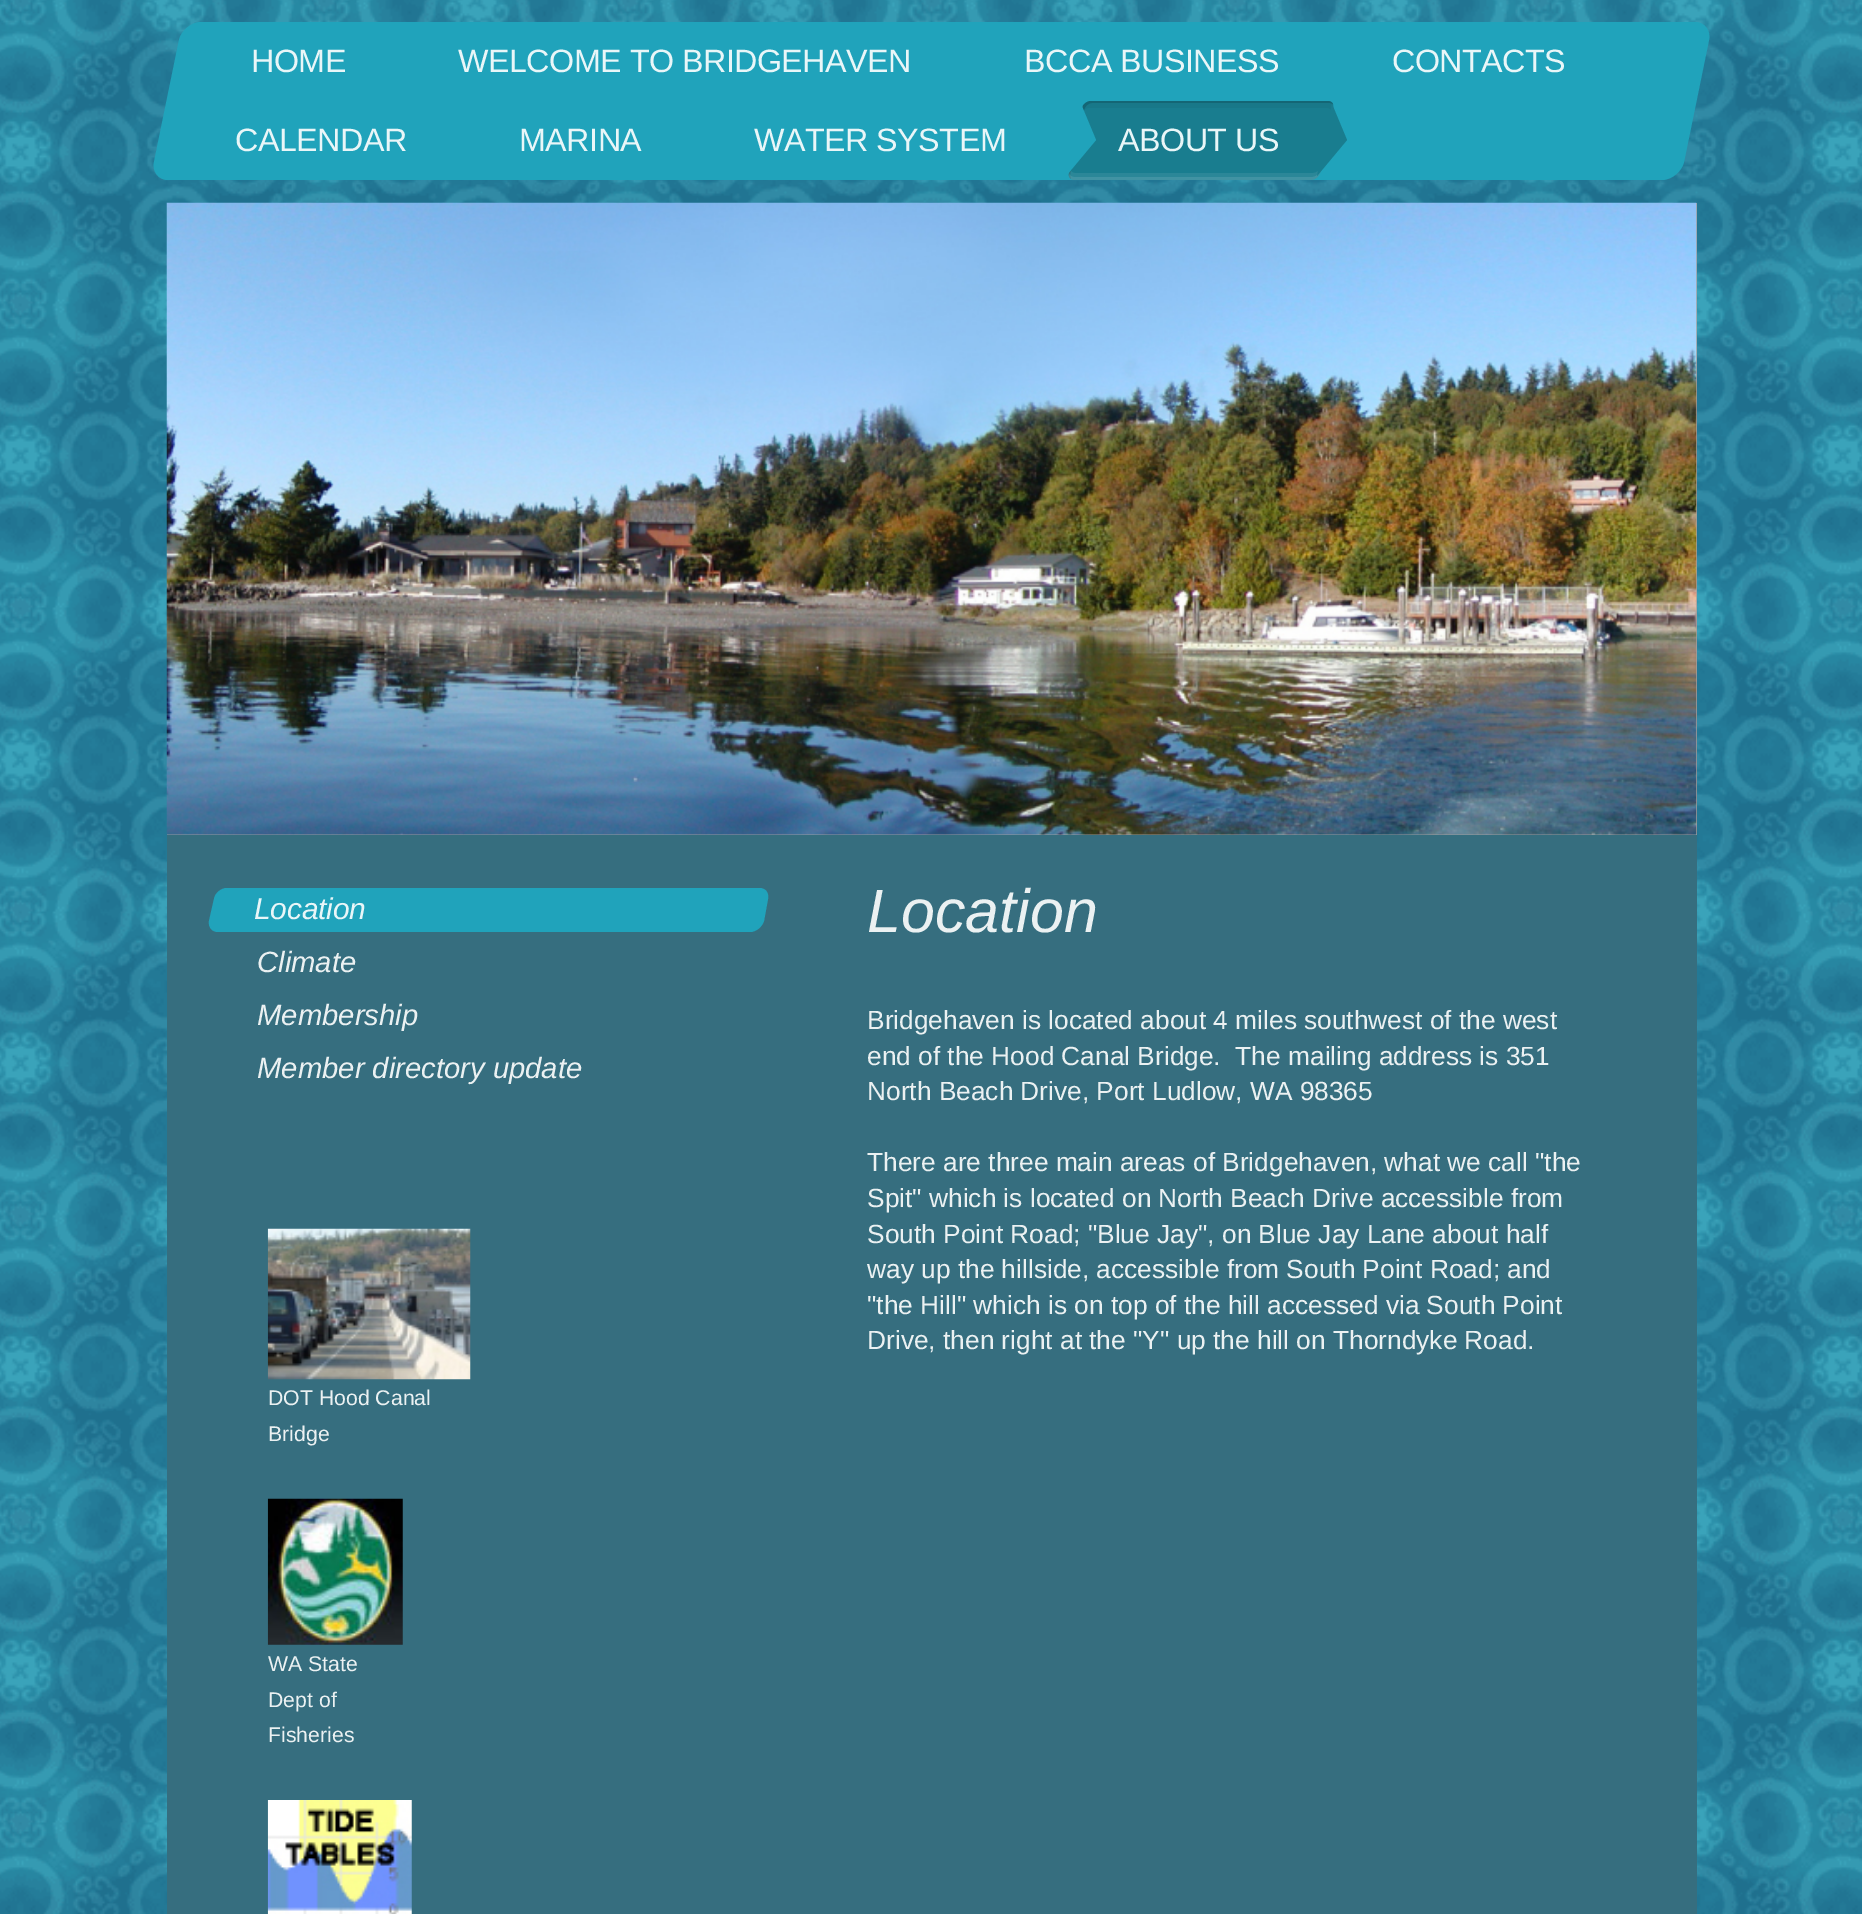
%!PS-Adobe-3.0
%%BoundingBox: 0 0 1862 1914
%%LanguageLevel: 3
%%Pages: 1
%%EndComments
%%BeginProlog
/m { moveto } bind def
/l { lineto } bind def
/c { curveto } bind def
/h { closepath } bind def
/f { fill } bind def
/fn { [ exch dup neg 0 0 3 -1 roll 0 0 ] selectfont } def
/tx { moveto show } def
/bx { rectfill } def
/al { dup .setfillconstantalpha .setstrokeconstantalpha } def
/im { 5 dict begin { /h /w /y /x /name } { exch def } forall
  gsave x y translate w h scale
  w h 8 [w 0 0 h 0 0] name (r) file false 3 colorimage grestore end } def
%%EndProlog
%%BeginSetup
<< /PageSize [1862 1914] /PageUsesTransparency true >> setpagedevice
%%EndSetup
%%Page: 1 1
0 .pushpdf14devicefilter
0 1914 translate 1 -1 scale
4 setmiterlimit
1 setgray
0 0 1862 1914 bx
(image0.raw) 0 0 1862 1914 im
0.125 0.639 0.733 setrgbcolor
201 22 m 1695 22 l 1705 22 1711 31 1709 40 c 1684 162 l 1682 171 1672 180 1662 180 c 168 180 l 158 180 152 171 154 162 c 179 40 l 181 31 191 22 201 22 c h f
/LiberationSans-Regular 32.25 fn
0.914 0.965 0.973 setrgbcolor
251 72 m -0.5 0 (HOME) ashow
458 72 m -0.5 0 (WELCOME TO BRIDGEHAVEN) ashow
1024 72 m -0.5 0 (BCCA BUSINESS) ashow
1392 72 m -0.5 0 (CONTACTS) ashow
235 151 m -0.5 0 (CALENDAR) ashow
519 151 m -0.5 0 (MARINA) ashow
754 151 m -0.5 0 (WATER SYSTEM) ashow
0.098 0.49 0.561 setrgbcolor
1091 101 m 1328 101 l 1332 101 1334 104 1333 108 c 1320 173 l 1319 176 1315 180 1311 180 c 1074 180 l 1070 180 1068 176 1069 173 c 1082 108 l 1083 104 1087 101 1091 101 c h f
0.15 al
0 setgray
1092 103 m 1330 103 l 1333 104 l 1332 102 1330 101 1328 101 c 1091 101 l 1087 101 1083 104 1082 108 c 1069 173 l 1068 175 1069 177 1071 179 c 1070 175 l 1084 110 l 1085 106 1089 103 1092 103 c h f
0.04 al
1089 108 m 1327 108 l 1330 108 1332 110 1332 114 c 1333 108 l 1334 104 1332 101 1328 101 c 1091 101 l 1087 101 1083 104 1082 108 c 1073 153 l 1081 115 l 1082 111 1085 108 1089 108 c h 1328 135 m 1319 174 l h eofill
0.08 al
1 setgray
1083 106 m 1074 148 l h 1070 167 m 1069 173 l 1068 176 1070 180 1074 180 c 1311 180 l 1315 180 1319 176 1320 173 c 1329 130 l 1321 166 l 1320 170 1317 173 1313 173 c 1075 173 l 1072 173 1070 171 1070 167 c h eofill
0.1 al
1083 106 m 1069 171 l h 1069 172 m 1069 173 l 1068 176 1070 180 1074 180 c 1311 180 l 1315 180 1319 176 1320 173 c 1323 157 l 1320 171 l 1319 174 1316 177 1312 177 c 1074 177 l 1071 177 1068 174 1069 172 c h eofill
1 al
0.125 0.639 0.733 setrgbcolor
1066 176 m 1081 104 l 1096 140 l h f
0.914 0.965 0.973 setrgbcolor
1118 151 m -0.5 0 (ABOUT US) ashow
0.098 0.49 0.561 setrgbcolor
1317 176 m 1332 104 l 1347 140 l h f
0.627 setgray
167 203 1530 632 bx
(image1.raw) 166 202 1531 633 im
0.212 0.431 0.498 setrgbcolor
167 835 1530 1079 bx
0.125 0.639 0.733 setrgbcolor
227 888 m 759 888 l 766 888 769 893 768 899 c 764 921 l 762 927 756 932 750 932 c 218 932 l 212 932 208 927 209 921 c 214 899 l 215 893 221 888 227 888 c h f
/LiberationSans-Italic 30 fn
0.914 0.965 0.973 setrgbcolor
254 919 m -0.25 0 (Location) ashow
/LiberationSans-Italic 29.25 fn
0.922 0.945 0.949 setrgbcolor
(Climate) 257 972 tx
(Membership) 257 1025 tx
(Member directory update) 257 1078 tx
(image2.raw) 267 1228 204 152 im
/LiberationSans-Regular 21.25 fn
(DOT Hood Canal) 268 1405 tx
(Bridge) 268 1441 tx
(image3.raw) 267 1498 136 147 im
(WA State) 268 1671 tx
(Dept of) 268 1707 tx
(Fisheries) 268 1742 tx
(image4.raw) 267 1800 145 114 im
/LiberationSans-Italic 61 fn
(Location) 867 932 tx
/LiberationSans-Regular 26.3 fn
(Bridgehaven is located about 4 miles southwest of the west) 867 1029 tx
(end of the Hood Canal Bridge.  The mailing address is 351) 867 1065 tx
(North Beach Drive, Port Ludlow, WA 98365) 867 1100 tx
(There are three main areas of Bridgehaven, what we call "the) 867 1171 tx
(Spit" which is located on North Beach Drive accessible from) 867 1207 tx
(South Point Road; "Blue Jay", on Blue Jay Lane about half) 867 1243 tx
(way up the hillside, accessible from South Point Road; and) 867 1278 tx
("the Hill" which is on top of the hill accessed via South Point) 867 1314 tx
(Drive, then right at the "Y" up the hill on Thorndyke Road.) 867 1349 tx
.poppdf14devicefilter showpage
%%EOF
